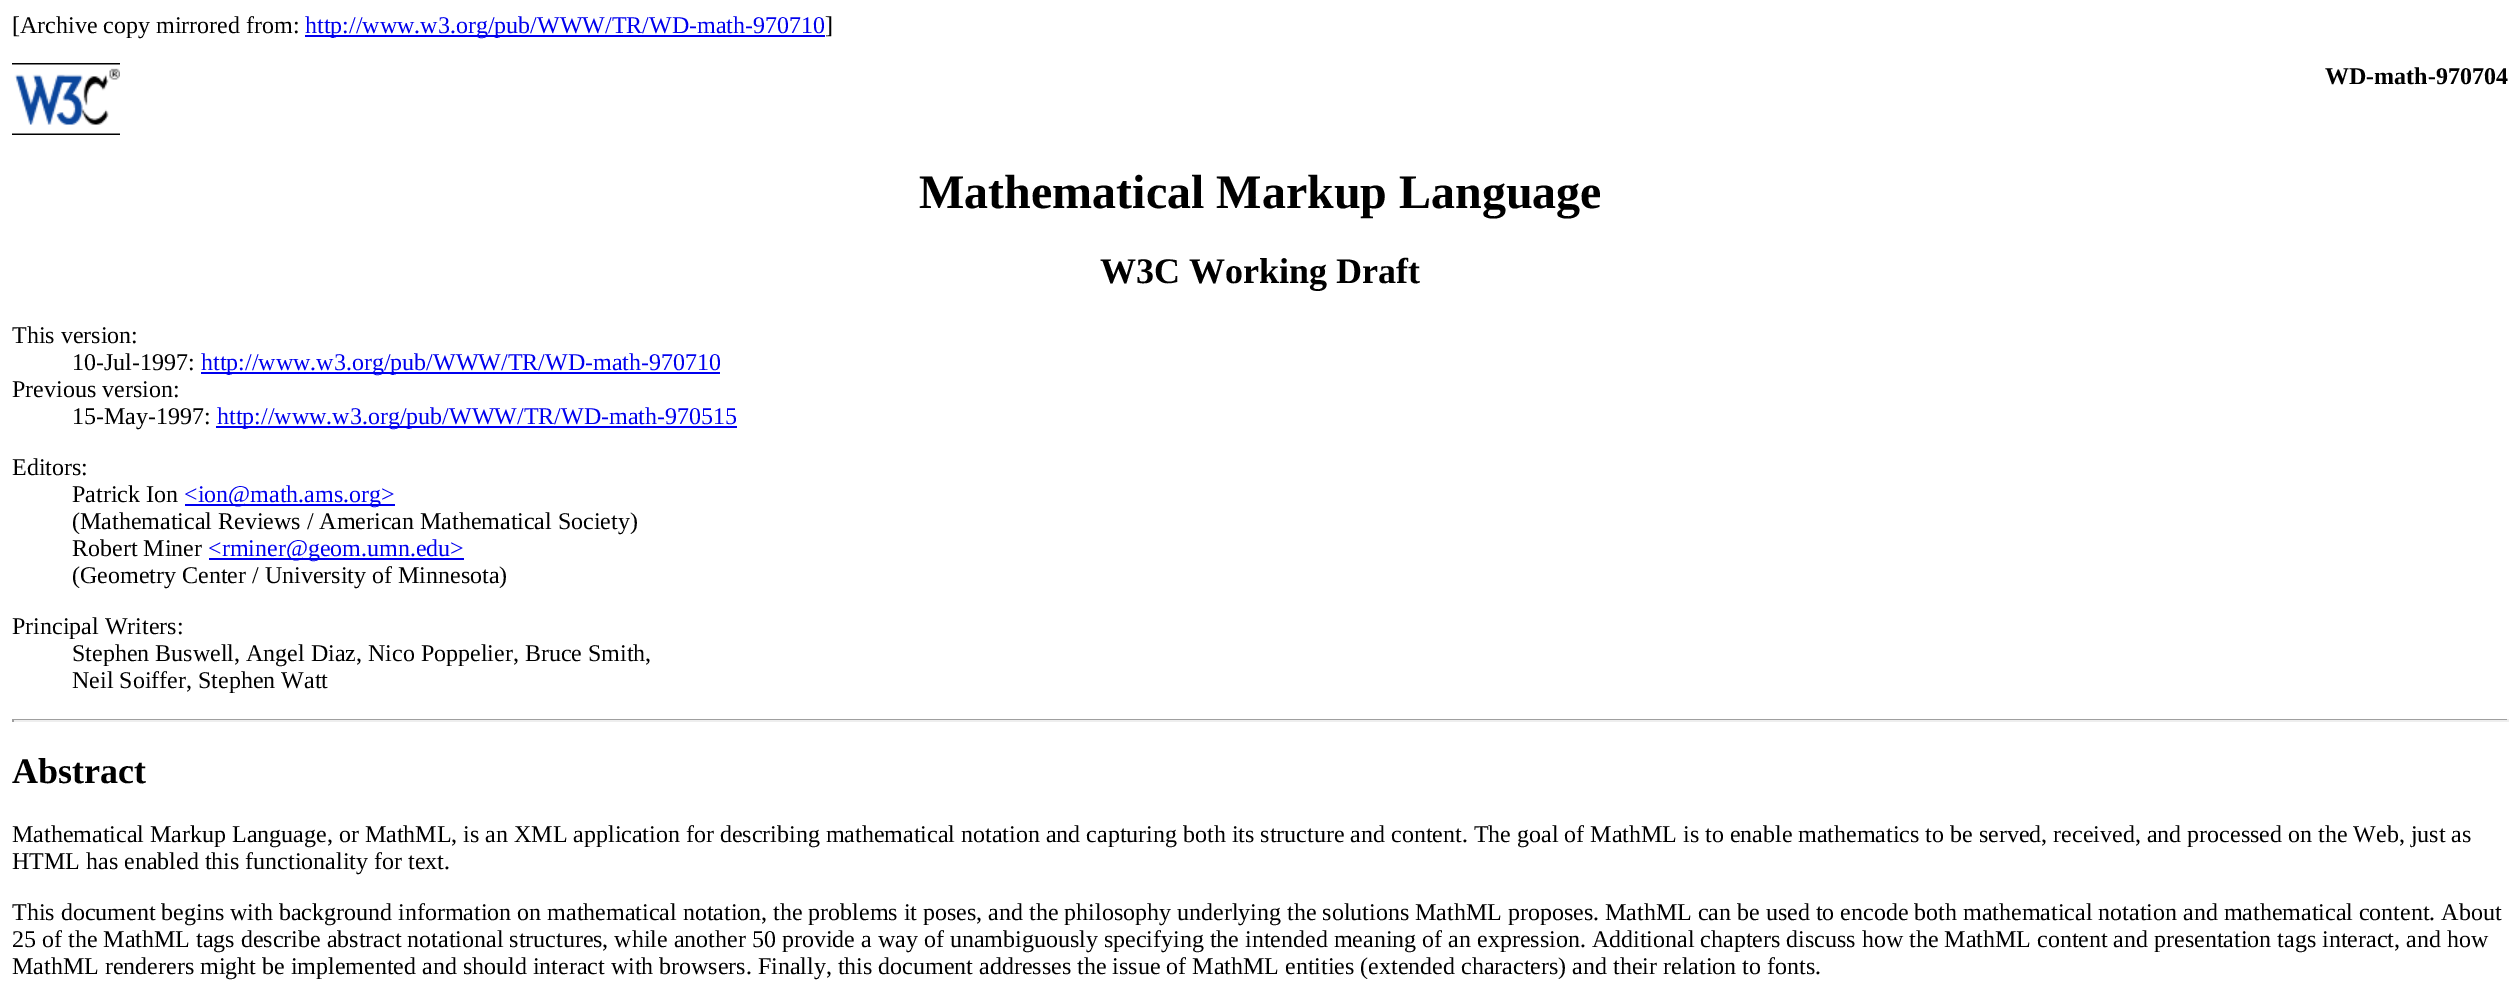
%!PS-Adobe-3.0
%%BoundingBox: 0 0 2520 990
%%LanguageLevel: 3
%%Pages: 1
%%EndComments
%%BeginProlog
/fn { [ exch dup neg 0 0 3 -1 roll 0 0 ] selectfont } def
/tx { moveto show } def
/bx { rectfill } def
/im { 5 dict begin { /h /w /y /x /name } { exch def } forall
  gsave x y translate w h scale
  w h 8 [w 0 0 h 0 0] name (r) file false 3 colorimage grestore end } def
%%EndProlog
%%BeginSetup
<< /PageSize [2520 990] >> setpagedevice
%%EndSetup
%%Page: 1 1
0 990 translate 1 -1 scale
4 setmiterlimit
1 setgray
0 0 2520 990 bx
/LiberationSerif-Regular 24 fn
0 setgray
([Archive copy mirrored from:) 12 33 tx
0 0 0.933 setrgbcolor
305 35 520 2 bx
(http://www.w3.org/pub/WWW/TR/WD-math-970710) 305 33 tx
0 setgray
(]) 825 33 tx
(image0.raw) 12 63 108 72 im
/LiberationSerif-Bold 24 fn
(WD-math-970704) 2325 84 tx
/LiberationSerif-Bold 48 fn
(Mathematical Markup Language) 919 208 tx
/LiberationSerif-Bold 36 fn
(W3C Working Draft) 1100 283 tx
/LiberationSerif-Regular 24 fn
(This version:) 12 343 tx
(10-Jul-1997:) 72 370 tx
0 0 0.933 setrgbcolor
201 372 519 2 bx
(http://www.w3.org/pub/WWW/TR/WD-math-970710) 201 370 tx
0 setgray
(Previous version:) 12 397 tx
(15-May-1997:) 72 424 tx
0 0 0.933 setrgbcolor
216 426 521 2 bx
(http://www.w3.org/pub/WWW/TR/WD-math-970515) 217 424 tx
0 setgray
(Editors:) 12 475 tx
(Patrick Ion) 72 502 tx
0 0 0.933 setrgbcolor
185 504 210 2 bx
(<ion@math.ams.org>) 184 502 tx
0 setgray
(\(Mathematical Reviews / American Mathematical Society\)) 72 529 tx
(Robert Miner) 72 556 tx
0 0 0.933 setrgbcolor
209 558 255 2 bx
(<rminer@geom.umn.edu>) 208 556 tx
0 setgray
(\(Geometry Center / University of Minnesota\)) 72 583 tx
(Principal Writers:) 12 634 tx
(Stephen Buswell, Angel Diaz, Nico Poppelier, Bruce Smith,) 72 661 tx
(Neil Soiffer, Stephen Watt) 72 688 tx
0.624 setgray
12 719 2496 1 bx
0.933 setgray
2507 719 2 3 bx
12 720 2496 2 bx
0.624 setgray
12 719 2 3 bx
/LiberationSerif-Bold 36 fn
0 setgray
(Abstract) 12 783 tx
/LiberationSerif-Regular 24 fn
(Mathematical Markup Language, or MathML, is an XML application for describing mathematical notation and capturing both its structure and content. The goal of MathML is to enable mathematics to be served, received, and processed on the Web, just as) 12 842 tx
(HTML has enabled this functionality for text.) 12 869 tx
(This document begins with background information on mathematical notation, the problems it poses, and the philosophy underlying the solutions MathML proposes. MathML can be used to encode both mathematical notation and mathematical content. About) 12 920 tx
(25 of the MathML tags describe abstract notational structures, while another 50 provide a way of unambiguously specifying the intended meaning of an expression. Additional chapters discuss how the MathML content and presentation tags interact, and how) 12 947 tx
(MathML renderers might be implemented and should interact with browsers. Finally, this document addresses the issue of MathML entities \(extended characters\) and their relation to fonts.) 12 974 tx
showpage
%%EOF
